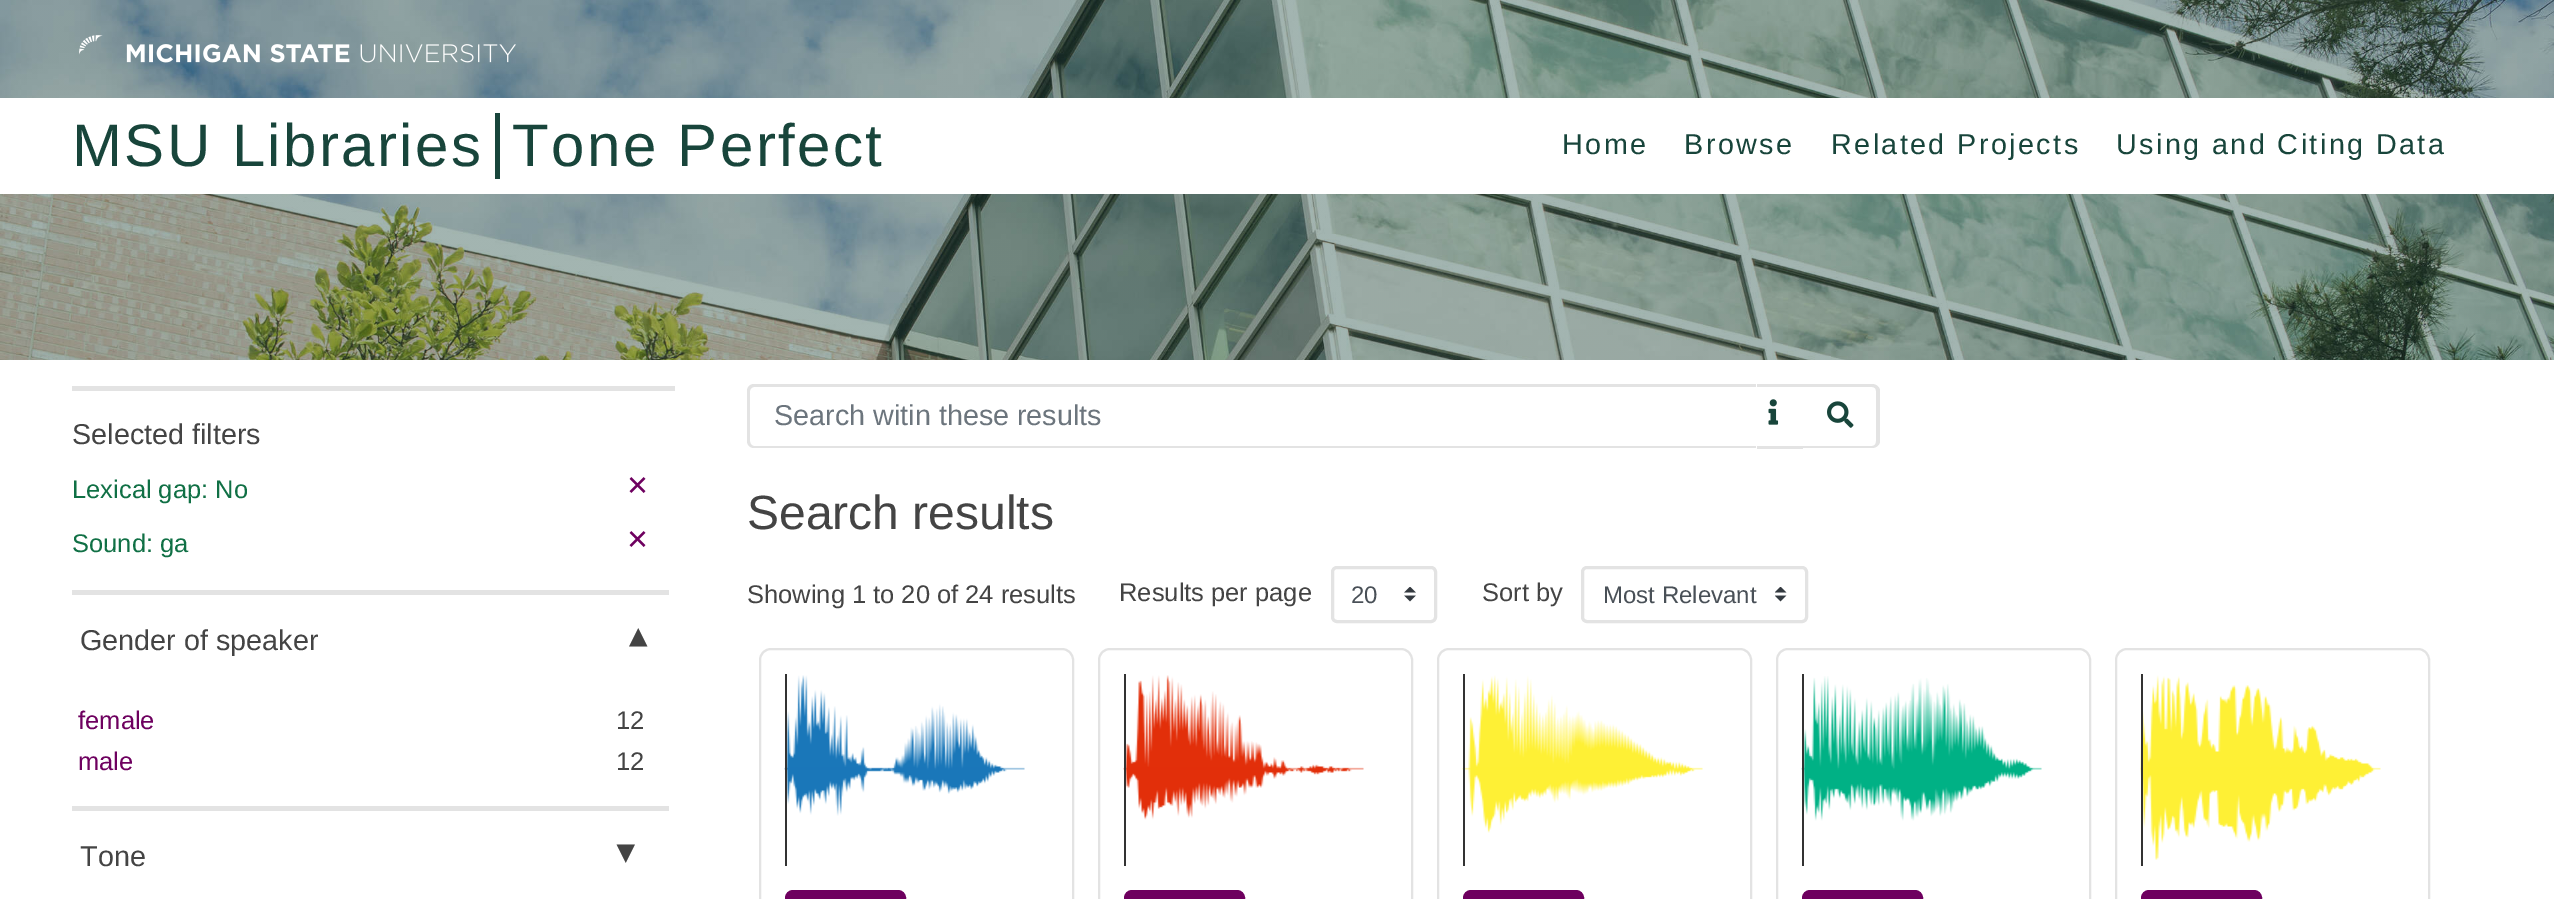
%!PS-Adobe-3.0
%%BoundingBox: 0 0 2554 899
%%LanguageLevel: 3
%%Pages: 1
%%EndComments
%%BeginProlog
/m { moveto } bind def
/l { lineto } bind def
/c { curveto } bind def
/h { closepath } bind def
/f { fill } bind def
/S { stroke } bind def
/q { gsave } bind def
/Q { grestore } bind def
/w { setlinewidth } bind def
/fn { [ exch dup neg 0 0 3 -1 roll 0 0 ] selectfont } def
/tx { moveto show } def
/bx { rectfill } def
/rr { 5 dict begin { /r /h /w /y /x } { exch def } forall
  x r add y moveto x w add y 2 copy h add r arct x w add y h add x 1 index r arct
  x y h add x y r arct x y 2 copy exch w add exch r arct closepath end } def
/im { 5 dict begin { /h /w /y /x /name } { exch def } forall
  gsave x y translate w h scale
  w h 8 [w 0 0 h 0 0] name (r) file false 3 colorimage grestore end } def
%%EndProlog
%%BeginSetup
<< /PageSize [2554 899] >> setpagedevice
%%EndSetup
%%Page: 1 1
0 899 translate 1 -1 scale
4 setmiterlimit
1 setgray
0 0 2554 899 bx
(image0.raw) 0 0 2554 360 im
(image1.raw) 79 35 437 28 im
0 98 2554 96 bx
/LiberationSans-Regular 60 fn
0.094 0.271 0.231 setrgbcolor
72 166 m 2.4 0 (MSU Libraries) ashow
495 113 5 66 bx
512 166 m 2.4 0 (Tone Perfect) ashow
/LiberationSans-Regular 28.75 fn
1562 154 m 2.4 0 (Home) ashow
1684 154 m 2.4 0 (Browse) ashow
1831 154 m 2.4 0 (Related Projects) ashow
2116 154 m 2.4 0 (Using and Citing Data) ashow
0.89 setgray
754 384 m 1756 384 l 1756 448 l 754 448 l 750 448 747 445 747 441 c 747 391 l 747 387 750 384 754 384 c h 754 387 m 1756 387 l 1756 446 l 754 446 l 752 446 750 444 750 441 c 750 391 l 750 389 752 387 754 387 c h eofill
0.424 0.459 0.49 setrgbcolor
(Search witin these results) 774 425 tx
0.89 setgray
1757 384 48 3 bx
1757 446 48 3 bx
(image2.raw) 1768 399 11 26 im
1 setgray
1803 384 m 1872 384 l 1876.5 384 1880 387.5 1880 392 c 1880 441 l 1880 445.5 1876.5 449 1872 449 c 1803 449 l h f
0.89 setgray
1803 384 m 1872 384 l 1876 384 1880 387 1880 391 c 1880 441 l 1880 445 1876 448 1872 448 c 1803 448 l h 1803 387 m 1872 387 l 1875 387 1876 389 1876 391 c 1876 441 l 1876 444 1875 446 1872 446 c 1803 446 l h eofill
(image3.raw) 1827 401 27 27 im
72 386 603 5 bx
0.267 setgray
(Selected filters) 72 444 tx
/LiberationSans-Regular 25.5 fn
0.063 0.439 0.271 setrgbcolor
(Lexical gap: No) 72 498 tx
/LiberationSans-Regular 36 fn
0.431 0 0.373 setrgbcolor
(×) 627 497 tx
/LiberationSans-Regular 25.5 fn
0.063 0.439 0.271 setrgbcolor
(Sound: ga) 72 552 tx
/LiberationSans-Regular 36 fn
0.431 0 0.373 setrgbcolor
(×) 627 551 tx
0.89 setgray
72 590 597 5 bx
72 806 597 5 bx
/LiberationSans-Regular 28.75 fn
0.267 setgray
(Gender of speaker) 80 650 tx
/DejaVuSans-Regular 24 fn
q 632 628 translate 90 rotate 0 0 m (◀) show Q
/LiberationSans-Regular 25.5 fn
0.431 0 0.373 setrgbcolor
(female) 78 729 tx
0.267 setgray
(12) 616 729 tx
0.431 0 0.373 setrgbcolor
(male) 78 770 tx
0.267 setgray
(12) 616 770 tx
/LiberationSans-Regular 28.75 fn
(Tone) 80 866 tx
/DejaVuSans-Regular 24 fn
q 632 863 translate -90 rotate 0 0 m (◀) show Q
/LiberationSans-Regular 48 fn
(Search results) 747 529 tx
/LiberationSans-Regular 25.5 fn
(Showing 1 to 20 of 24 results) 747 603 tx
(Results per page) 1119 601 tx
(image4.raw) 1404 587 12 15 im
0.89 setgray
3 w
1332.5 567.5 103 54 4.5 rr S
/LiberationSans-Regular 24 fn
0.286 0.314 0.341 setrgbcolor
(20) 1351 603 tx
/LiberationSans-Regular 25.5 fn
0.267 setgray
(Sort by) 1482 601 tx
(image5.raw) 1775 587 12 15 im
0.89 setgray
1582.5 567.5 224 54 4.5 rr S
/LiberationSans-Regular 24 fn
0.286 0.314 0.341 setrgbcolor
(Most Relevant) 1603 603 tx
0.89 setgray
2 w
760 649 313 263 11 rr S
(image6.raw) 784 675 241 141 im
0.2 setgray
785 674 2 192 bx
0.431 0 0.373 setrgbcolor
786 891 119 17 7 rr q f Q
S
0.89 setgray
1099 649 313 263 11 rr S
(image7.raw) 1123 675 241 145 im
0.2 setgray
1124 674 2 192 bx
0.431 0 0.373 setrgbcolor
1125 891 119 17 7 rr q f Q
S
0.89 setgray
1438 649 313 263 11 rr S
(image8.raw) 1462 675 241 158 im
0.2 setgray
1463 674 2 192 bx
0.431 0 0.373 setrgbcolor
1464 891 119 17 7 rr q f Q
S
0.89 setgray
1777 649 313 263 11 rr S
(image9.raw) 1801 676 241 145 im
0.2 setgray
1802 674 2 192 bx
0.431 0 0.373 setrgbcolor
1803 891 119 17 7 rr q f Q
S
0.89 setgray
2116 649 313 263 11 rr S
(image10.raw) 2140 675 241 185 im
0.2 setgray
2141 674 2 192 bx
0.431 0 0.373 setrgbcolor
2142 891 119 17 7 rr q f Q
S
showpage
%%EOF
